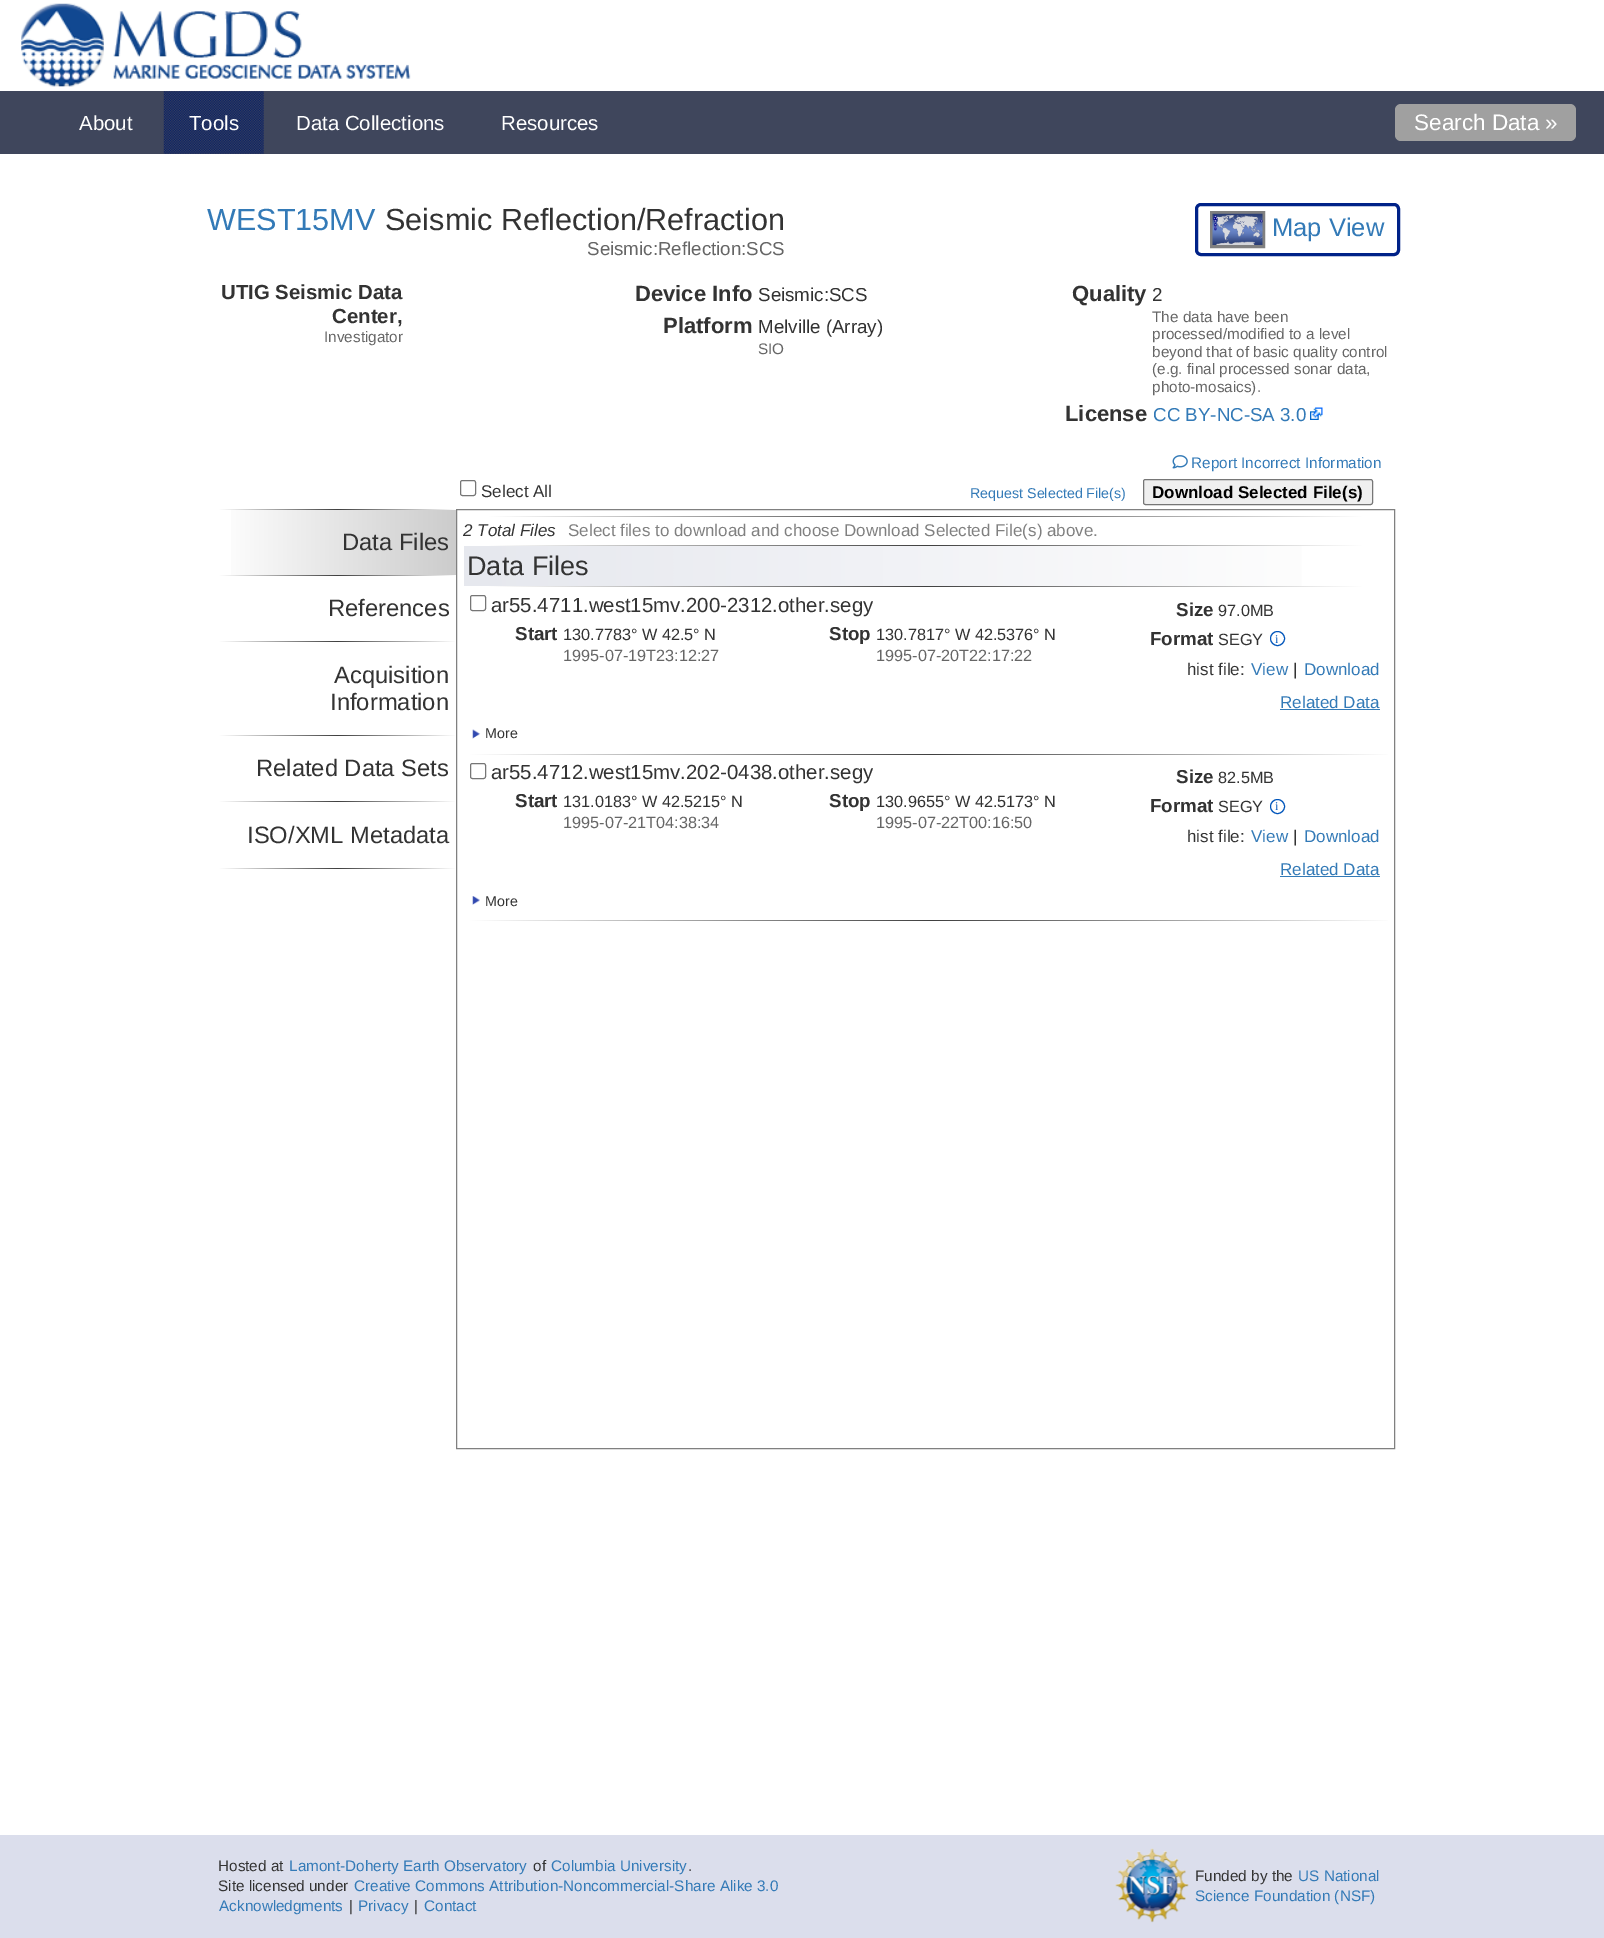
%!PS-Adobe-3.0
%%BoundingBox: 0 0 1604 1938
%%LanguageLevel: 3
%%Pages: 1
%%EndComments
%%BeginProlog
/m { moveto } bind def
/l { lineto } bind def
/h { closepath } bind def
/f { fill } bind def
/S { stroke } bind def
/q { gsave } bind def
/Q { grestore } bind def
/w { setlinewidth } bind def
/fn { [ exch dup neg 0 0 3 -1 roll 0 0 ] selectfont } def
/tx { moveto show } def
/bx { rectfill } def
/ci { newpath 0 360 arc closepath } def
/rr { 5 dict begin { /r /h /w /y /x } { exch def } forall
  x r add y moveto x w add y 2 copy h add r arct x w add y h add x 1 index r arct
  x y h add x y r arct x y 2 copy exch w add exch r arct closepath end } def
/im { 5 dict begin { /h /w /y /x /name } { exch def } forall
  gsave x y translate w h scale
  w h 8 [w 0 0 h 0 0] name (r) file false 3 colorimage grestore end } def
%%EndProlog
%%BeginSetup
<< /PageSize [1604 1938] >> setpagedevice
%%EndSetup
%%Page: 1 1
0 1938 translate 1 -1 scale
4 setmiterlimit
1 setgray
0 0 1604 1938 bx
(image0.raw) 21 3 390 84 im
0.247 0.275 0.361 setrgbcolor
0 91 1604 63 bx
/LiberationSans-Regular 20.4 fn
1 setgray
(About) 79 130 tx
(image1.raw) 163 91 101 63 im
(Tools) 189 130 tx
(Data Collections) 296 130 tx
(Resources) 501 130 tx
0.627 setgray
1395 104 181 37 6 rr f
/LiberationSans-Regular 22.5 fn
1 setgray
(Search Data ») 1414 130 tx
/LiberationSans-Regular 30.6 fn
0.2 0.478 0.718 setrgbcolor
(WEST15MV) 207 230 tx
0.2 setgray
(Seismic Reflection/Refraction) 385 230 tx
/LiberationSans-Regular 18.75 fn
0.4 setgray
(Seismic:Reflection:SCS) 587 255 tx
0 0.133 0.533 setrgbcolor
3 w
1196.5 204.5 202 50 4.5 rr S
0.502 setgray
1211.5 212.5 52 34 rectstroke
(image2.raw) 1212 213 51 32 im
/LiberationSans-Regular 25.5 fn
0.2 0.478 0.718 setrgbcolor
(Map View) 1272 236 tx
/LiberationSans-Bold 20.4 fn
0.2 setgray
(UTIG Seismic Data) 221 299 tx
(Center,) 332 323 tx
/LiberationSans-Regular 15.3 fn
0.4 setgray
(Investigator) 324 342 tx
/LiberationSans-Bold 22 fn
0.2 setgray
(Device Info) 635 301 tx
/LiberationSans-Regular 18.75 fn
(Seismic:SCS) 758 301 tx
/LiberationSans-Bold 22 fn
(Platform) 663 333 tx
/LiberationSans-Regular 18.75 fn
(Melville \(Array\)) 758 333 tx
/LiberationSans-Regular 15.3 fn
0.4 setgray
(SIO) 758 354 tx
/LiberationSans-Bold 22 fn
0.2 setgray
(Quality) 1072 301 tx
/LiberationSans-Regular 18.75 fn
(2) 1152 301 tx
/LiberationSans-Regular 15.3 fn
0.4 setgray
(The data have been) 1152 322 tx
(processed/modified to a level) 1152 339 tx
(beyond that of basic quality control) 1152 357 tx
(\(e.g. final processed sonar data,) 1152 374 tx
(photo-mosaics\).) 1152 392 tx
/LiberationSans-Bold 22 fn
0.2 setgray
(License) 1065 421 tx
/LiberationSans-Regular 18.75 fn
0.2 0.478 0.718 setrgbcolor
(CC BY-NC-SA 3.0) 1153 421 tx
(image3.raw) 1310 407 13 13 im
(image4.raw) 1172 455 16 14 im
/LiberationSans-Regular 15.3 fn
(Report Incorrect Information) 1191 468 tx
0.463 setgray
1 w
460.5 480.5 15 15 2 rr S
/LiberationSans-Regular 17 fn
0.2 setgray
(Select All) 481 497 tx
/LiberationSans-Regular 14.25 fn
0.2 0.478 0.718 setrgbcolor
(Request Selected File\(s\)) 970 498 tx
0.937 setgray
1143.5 479.5 229 25 2 rr q f Q
0.463 setgray
S
/LiberationSans-Bold 17 fn
0 setgray
(Download Selected File\(s\)) 1152 498 tx
q 219 509 m 456 509 l 456 510 l 219 510 l h clip newpath
<< /ShadingType 2 /ColorSpace /DeviceRGB /Coords [219 509 456 509] /Extend [true true] /Function << /FunctionType 3 /Domain [0 1] /Functions [<< /FunctionType 2 /Domain [0 1] /C0 [1 1 1] /C1 [0.251 0.251 0.251] /N 1 >> << /FunctionType 2 /Domain [0 1] /C0 [0.251 0.251 0.251] /C1 [1 1 1] /N 1 >>] /Bounds [0.5] /Encode [0 1 0 1] >> >> shfill Q
q 231 510 m 456 510 l 456 575 l 231 575 l h clip newpath
<< /ShadingType 2 /ColorSpace /DeviceRGB /Coords [219 543 456 543] /Extend [true true] /Function << /FunctionType 2 /Domain [0 1] /C0 [1 1 1] /C1 [0.8 0.8 0.8] /N 1 >> >> shfill Q
/LiberationSans-Regular 23.75 fn
0.2 setgray
(Data Files) 342 550 tx
q 219 575 m 456 575 l 456 576 l 219 576 l h clip newpath
<< /ShadingType 2 /ColorSpace /DeviceRGB /Coords [219 576 456 576] /Extend [true true] /Function << /FunctionType 3 /Domain [0 1] /Functions [<< /FunctionType 2 /Domain [0 1] /C0 [1 1 1] /C1 [0.251 0.251 0.251] /N 1 >> << /FunctionType 2 /Domain [0 1] /C0 [0.251 0.251 0.251] /C1 [1 1 1] /N 1 >>] /Bounds [0.5] /Encode [0 1 0 1] >> >> shfill Q
(References) 328 616 tx
q 219 641 m 456 641 l 456 642 l 219 642 l h clip newpath
<< /ShadingType 2 /ColorSpace /DeviceRGB /Coords [219 642 456 642] /Extend [true true] /Function << /FunctionType 3 /Domain [0 1] /Functions [<< /FunctionType 2 /Domain [0 1] /C0 [1 1 1] /C1 [0.251 0.251 0.251] /N 1 >> << /FunctionType 2 /Domain [0 1] /C0 [0.251 0.251 0.251] /C1 [1 1 1] /N 1 >>] /Bounds [0.5] /Encode [0 1 0 1] >> >> shfill Q
(Acquisition) 334 683 tx
(Information) 330 710 tx
q 219 735 m 456 735 l 456 736 l 219 736 l h clip newpath
<< /ShadingType 2 /ColorSpace /DeviceRGB /Coords [219 736 456 736] /Extend [true true] /Function << /FunctionType 3 /Domain [0 1] /Functions [<< /FunctionType 2 /Domain [0 1] /C0 [1 1 1] /C1 [0.251 0.251 0.251] /N 1 >> << /FunctionType 2 /Domain [0 1] /C0 [0.251 0.251 0.251] /C1 [1 1 1] /N 1 >>] /Bounds [0.5] /Encode [0 1 0 1] >> >> shfill Q
(Related Data Sets) 256 776 tx
q 219 801 m 456 801 l 456 802 l 219 802 l h clip newpath
<< /ShadingType 2 /ColorSpace /DeviceRGB /Coords [219 802 456 802] /Extend [true true] /Function << /FunctionType 3 /Domain [0 1] /Functions [<< /FunctionType 2 /Domain [0 1] /C0 [1 1 1] /C1 [0.251 0.251 0.251] /N 1 >> << /FunctionType 2 /Domain [0 1] /C0 [0.251 0.251 0.251] /C1 [1 1 1] /N 1 >>] /Bounds [0.5] /Encode [0 1 0 1] >> >> shfill Q
(ISO/XML Metadata) 247 843 tx
q 219 868 m 456 868 l 456 869 l 219 869 l h clip newpath
<< /ShadingType 2 /ColorSpace /DeviceRGB /Coords [219 868 456 868] /Extend [true true] /Function << /FunctionType 3 /Domain [0 1] /Functions [<< /FunctionType 2 /Domain [0 1] /C0 [1 1 1] /C1 [0.251 0.251 0.251] /N 1 >> << /FunctionType 2 /Domain [0 1] /C0 [0.251 0.251 0.251] /C1 [1 1 1] /N 1 >>] /Bounds [0.5] /Encode [0 1 0 1] >> >> shfill Q
0.502 setgray
456.5 509.5 938 939 rectstroke
q 489 516 m 1363 516 l 1363 517 l 489 517 l h clip newpath
<< /ShadingType 2 /ColorSpace /DeviceRGB /Coords [489 517 1363 517] /Extend [true true] /Function << /FunctionType 3 /Domain [0 1] /Functions [<< /FunctionType 2 /Domain [0 1] /C0 [1 1 1] /C1 [0.251 0.251 0.251] /N 1 >> << /FunctionType 2 /Domain [0 1] /C0 [0.251 0.251 0.251] /C1 [1 1 1] /N 1 >>] /Bounds [0.5] /Encode [0 1 0 1] >> >> shfill Q
/LiberationSans-Italic 17 fn
0.2 setgray
(2 Total Files) 463 536 tx
/LiberationSans-Regular 17 fn
0.502 setgray
(Select files to download and choose Download Selected File\(s\) above.) 568 536 tx
q 489 545 m 1363 545 l 1363 546 l 489 546 l h clip newpath
<< /ShadingType 2 /ColorSpace /DeviceRGB /Coords [489 546 1363 546] /Extend [true true] /Function << /FunctionType 3 /Domain [0 1] /Functions [<< /FunctionType 2 /Domain [0 1] /C0 [1 1 1] /C1 [0.251 0.251 0.251] /N 1 >> << /FunctionType 2 /Domain [0 1] /C0 [0.251 0.251 0.251] /C1 [1 1 1] /N 1 >>] /Bounds [0.5] /Encode [0 1 0 1] >> >> shfill Q
q 464 546 m 1302 546 l 1302 586 l 464 586 l h clip newpath
<< /ShadingType 2 /ColorSpace /DeviceRGB /Coords [464 566 1395 566] /Extend [true true] /Function << /FunctionType 2 /Domain [0 1] /C0 [0.902 0.91 0.933] /C1 [1 1 1] /N 1 >> >> shfill Q
/LiberationSans-Regular 27 fn
0.2 setgray
(Data Files) 467 575 tx
q 489 586 m 1363 586 l 1363 587 l 489 587 l h clip newpath
<< /ShadingType 2 /ColorSpace /DeviceRGB /Coords [489 587 1363 587] /Extend [true true] /Function << /FunctionType 3 /Domain [0 1] /Functions [<< /FunctionType 2 /Domain [0 1] /C0 [1 1 1] /C1 [0.251 0.251 0.251] /N 1 >> << /FunctionType 2 /Domain [0 1] /C0 [0.251 0.251 0.251] /C1 [1 1 1] /N 1 >>] /Bounds [0.5] /Encode [0 1 0 1] >> >> shfill Q
0.463 setgray
470.5 595.5 15 15 2 rr S
/LiberationSans-Regular 20.4 fn
0.2 setgray
(ar55.4711.west15mv.200-2312.other.segy) 491 612 tx
/LiberationSans-Bold 18.75 fn
(Start) 515 640 tx
/LiberationSans-Regular 16.25 fn
(130.7783° W 42.5° N) 563 640 tx
0.4 setgray
(1995-07-19T23:12:27) 563 661 tx
/LiberationSans-Bold 18.75 fn
0.2 setgray
(Stop) 829 640 tx
/LiberationSans-Regular 16.25 fn
(130.7817° W 42.5376° N) 876 640 tx
0.4 setgray
(1995-07-20T22:17:22) 876 661 tx
/LiberationSans-Bold 18.75 fn
0.2 setgray
(Size) 1176 616 tx
/LiberationSans-Regular 16.25 fn
(97.0MB) 1218 616 tx
/LiberationSans-Bold 18.75 fn
(Format) 1150 645 tx
/LiberationSans-Regular 16.25 fn
(SEGY) 1218 645 tx
0 0.333 0.733 setrgbcolor
1277.5 638.5 7 ci S
/LiberationSerif-Regular 12 fn
(i) 1275 643 tx
/LiberationSans-Regular 17 fn
0.2 setgray
(hist file:) 1187 675 tx
0.2 0.478 0.718 setrgbcolor
(View) 1251 675 tx
0.2 setgray
(|) 1293 675 tx
0.2 0.478 0.718 setrgbcolor
(Download) 1304 675 tx
(Related Data) 1280 708 tx
1280 709 100 1 bx
(image5.raw) 472 729 9 10 im
/LiberationSans-Regular 14.25 fn
0.2 setgray
(More) 485 738 tx
q 470 754 m 1388 754 l 1388 755 l 470 755 l h clip newpath
<< /ShadingType 2 /ColorSpace /DeviceRGB /Coords [470 754 1394 754] /Extend [true true] /Function << /FunctionType 3 /Domain [0 1] /Functions [<< /FunctionType 2 /Domain [0 1] /C0 [1 1 1] /C1 [0.251 0.251 0.251] /N 1 >> << /FunctionType 2 /Domain [0 1] /C0 [0.251 0.251 0.251] /C1 [1 1 1] /N 1 >>] /Bounds [0.5] /Encode [0 1 0 1] >> >> shfill Q
0.463 setgray
470.5 763.5 15 15 2 rr S
/LiberationSans-Regular 20.4 fn
0.2 setgray
(ar55.4712.west15mv.202-0438.other.segy) 491 779 tx
/LiberationSans-Bold 18.75 fn
(Start) 515 807 tx
/LiberationSans-Regular 16.25 fn
(131.0183° W 42.5215° N) 563 807 tx
0.4 setgray
(1995-07-21T04:38:34) 563 828 tx
/LiberationSans-Bold 18.75 fn
0.2 setgray
(Stop) 829 807 tx
/LiberationSans-Regular 16.25 fn
(130.9655° W 42.5173° N) 876 807 tx
0.4 setgray
(1995-07-22T00:16:50) 876 828 tx
/LiberationSans-Bold 18.75 fn
0.2 setgray
(Size) 1176 783 tx
/LiberationSans-Regular 16.25 fn
(82.5MB) 1218 783 tx
/LiberationSans-Bold 18.75 fn
(Format) 1150 812 tx
/LiberationSans-Regular 16.25 fn
(SEGY) 1218 812 tx
0 0.333 0.733 setrgbcolor
1277.5 806.5 7 ci S
/LiberationSerif-Regular 12 fn
(i) 1275 810 tx
/LiberationSans-Regular 17 fn
0.2 setgray
(hist file:) 1187 842 tx
0.2 0.478 0.718 setrgbcolor
(View) 1251 842 tx
0.2 setgray
(|) 1293 842 tx
0.2 0.478 0.718 setrgbcolor
(Download) 1304 842 tx
(Related Data) 1280 875 tx
1280 876 100 1 bx
(image6.raw) 472 896 8 9 im
/LiberationSans-Regular 14.25 fn
0.2 setgray
(More) 485 906 tx
q 470 920 m 1388 920 l 1388 921 l 470 921 l h clip newpath
<< /ShadingType 2 /ColorSpace /DeviceRGB /Coords [470 921 1394 921] /Extend [true true] /Function << /FunctionType 3 /Domain [0 1] /Functions [<< /FunctionType 2 /Domain [0 1] /C0 [1 1 1] /C1 [0.251 0.251 0.251] /N 1 >> << /FunctionType 2 /Domain [0 1] /C0 [0.251 0.251 0.251] /C1 [1 1 1] /N 1 >>] /Bounds [0.5] /Encode [0 1 0 1] >> >> shfill Q
0.859 0.871 0.925 setrgbcolor
0 1835 1604 103 bx
/LiberationSans-Regular 15.3 fn
0.2 setgray
(Hosted at) 218 1871 tx
0.2 0.478 0.718 setrgbcolor
(Lamont-Doherty Earth Observatory) 289 1871 tx
0.2 setgray
(of) 533 1871 tx
0.2 0.478 0.718 setrgbcolor
(Columbia University) 551 1871 tx
0.2 setgray
(.) 688 1871 tx
(Site licensed under) 218 1891 tx
0.2 0.478 0.718 setrgbcolor
(Creative Commons Attribution-Noncommercial-Share Alike 3.0) 354 1891 tx
(Acknowledgments) 219 1911 tx
0.2 setgray
(|) 349 1911 tx
0.2 0.478 0.718 setrgbcolor
(Privacy) 358 1911 tx
0.2 setgray
(|) 414 1911 tx
0.2 0.478 0.718 setrgbcolor
(Contact) 424 1911 tx
(image7.raw) 1115 1848 74 75 im
0.2 setgray
(Funded by the) 1195 1881 tx
0.2 0.478 0.718 setrgbcolor
(US National) 1298 1881 tx
(Science Foundation \(NSF\)) 1195 1901 tx
showpage
%%EOF
